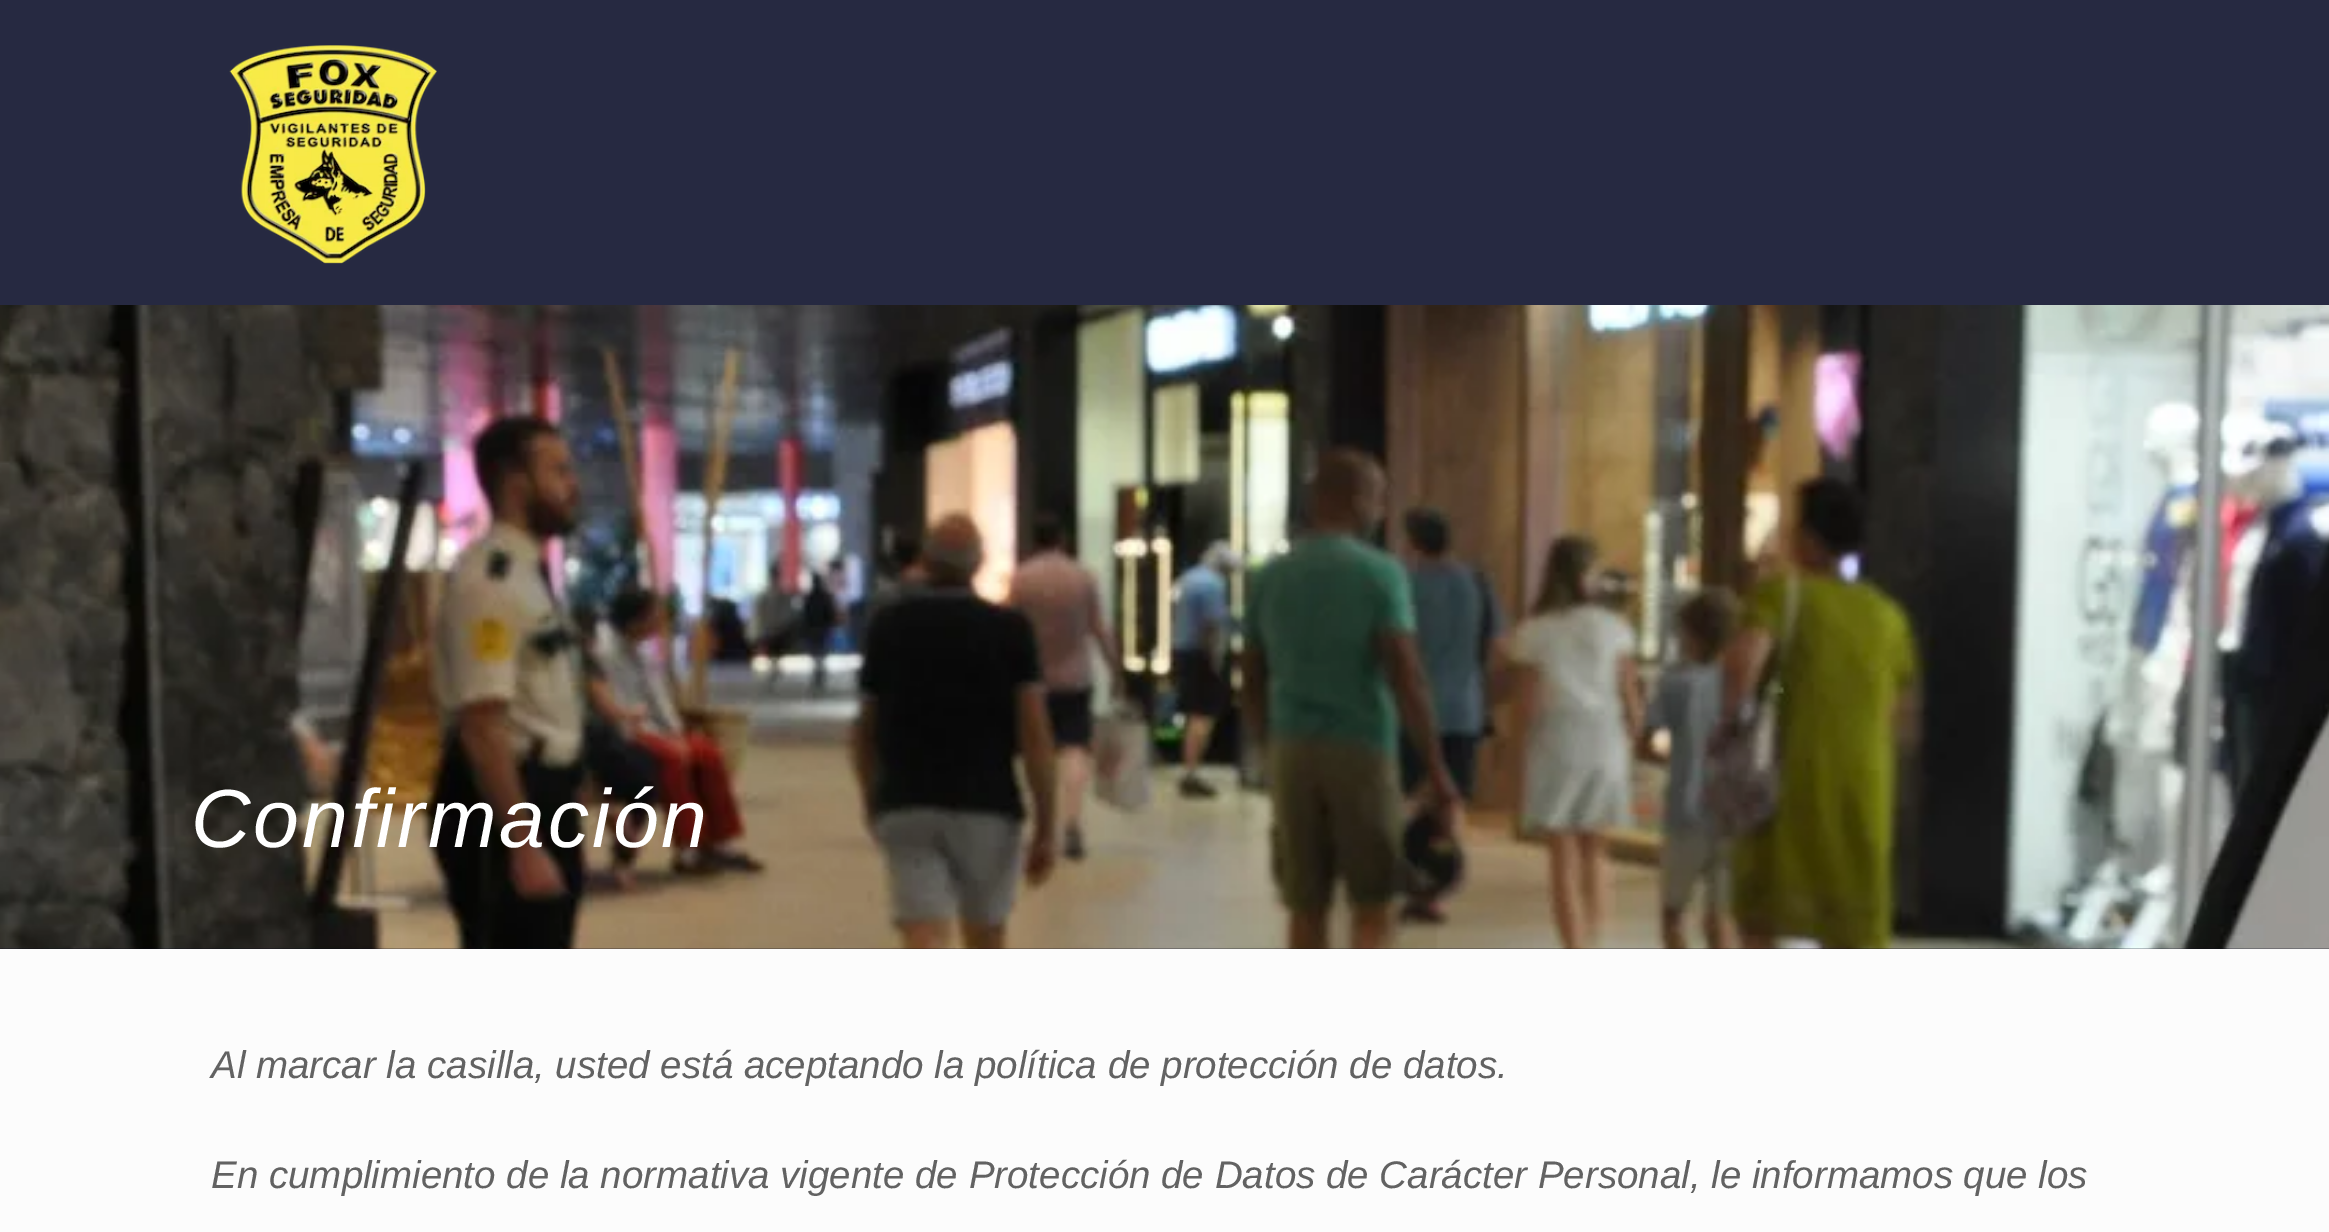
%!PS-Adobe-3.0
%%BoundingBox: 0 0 2329 1232
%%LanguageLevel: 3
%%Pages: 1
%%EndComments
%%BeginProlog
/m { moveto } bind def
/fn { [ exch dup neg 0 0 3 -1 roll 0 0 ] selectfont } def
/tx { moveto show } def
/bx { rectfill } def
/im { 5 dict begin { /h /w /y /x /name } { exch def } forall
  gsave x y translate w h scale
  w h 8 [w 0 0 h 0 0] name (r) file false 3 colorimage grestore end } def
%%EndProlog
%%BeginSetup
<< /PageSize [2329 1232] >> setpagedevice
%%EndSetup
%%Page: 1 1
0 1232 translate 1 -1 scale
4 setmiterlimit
0.988 setgray
0 0 2329 1232 bx
(image0.raw) 0 305 2329 644 im
0.149 0.161 0.255 setrgbcolor
0 0 2329 305 bx
(image1.raw) 229 45 208 219 im
/LiberationSans-Italic 82.5 fn
1 setgray
191 847 m 2.75 0 (Confirmación) ashow
/LiberationSans-Italic 38.5 fn
0.384 setgray
(Al marcar la casilla, usted está aceptando la política de protección de datos.) 211 1078 tx
(En cumplimiento de la normativa vigente de Protección de Datos de Carácter Personal, le informamos que los) 211 1188 tx
showpage
%%EOF
